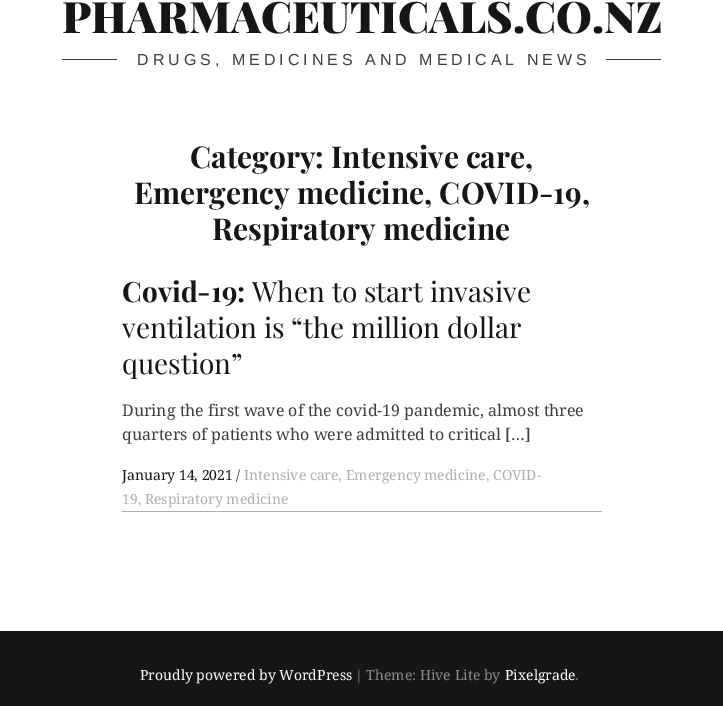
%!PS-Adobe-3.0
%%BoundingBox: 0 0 723 706
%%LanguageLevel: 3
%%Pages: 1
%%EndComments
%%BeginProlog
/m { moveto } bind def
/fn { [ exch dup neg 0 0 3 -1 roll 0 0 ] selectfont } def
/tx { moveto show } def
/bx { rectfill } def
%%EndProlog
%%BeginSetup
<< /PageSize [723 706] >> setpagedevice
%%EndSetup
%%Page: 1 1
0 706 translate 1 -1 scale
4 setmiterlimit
1 setgray
0 0 723 706 bx
/PlayfairDisplay-Black 43.4 fn
0.09 0.086 0.09 setrgbcolor
(PHARMACEUTICALS.CO.NZ) 62 33 tx
0.239 0.243 0.251 setrgbcolor
62 59 599 1 bx
1 setgray
117 59 489 1 bx
/LiberationSans-Regular 16 fn
0.239 0.243 0.251 setrgbcolor
137 65 m 4 0 (DRUGS, MEDICINES AND MEDICAL NEWS) ashow
/PlayfairDisplay-Bold 30 fn
0.09 0.086 0.09 setrgbcolor
(Category: Intensive care,) 190 168 tx
(Emergency medicine, COVID-19,) 134 204 tx
(Respiratory medicine) 212 240 tx
/PlayfairDisplay-Bold 28 fn
(Covid-19:) 122 302 tx
/PlayfairDisplay-Regular 28 fn
(When to start invasive) 252 302 tx
(ventilation is “the million dollar) 122 338 tx
(question”) 122 374 tx
/NotoSerif-Regular 16 fn
0.239 0.243 0.251 setrgbcolor
(During the first wave of the covid-19 pandemic, almost three) 122 416 tx
(quarters of patients who were admitted to critical […]) 122 440 tx
/NotoSerif-Regular 14 fn
0.09 0.086 0.09 setrgbcolor
(January 14, 2021) 122 480 tx
0.239 0.243 0.251 setrgbcolor
(/) 236 480 tx
0.686 setgray
(Intensive care, Emergency medicine, COVID-) 244 480 tx
(19, Respiratory medicine) 122 504 tx
122 511 480 1 bx
0.09 0.086 0.09 setrgbcolor
0 631 723 75 bx
1 setgray
(Proudly powered by WordPress) 140 680 tx
0.549 0.533 0.549 setrgbcolor
(| Theme: Hive Lite by) 355 680 tx
1 setgray
(Pixelgrade) 505 680 tx
0.549 0.533 0.549 setrgbcolor
(.) 575 680 tx
showpage
%%EOF
